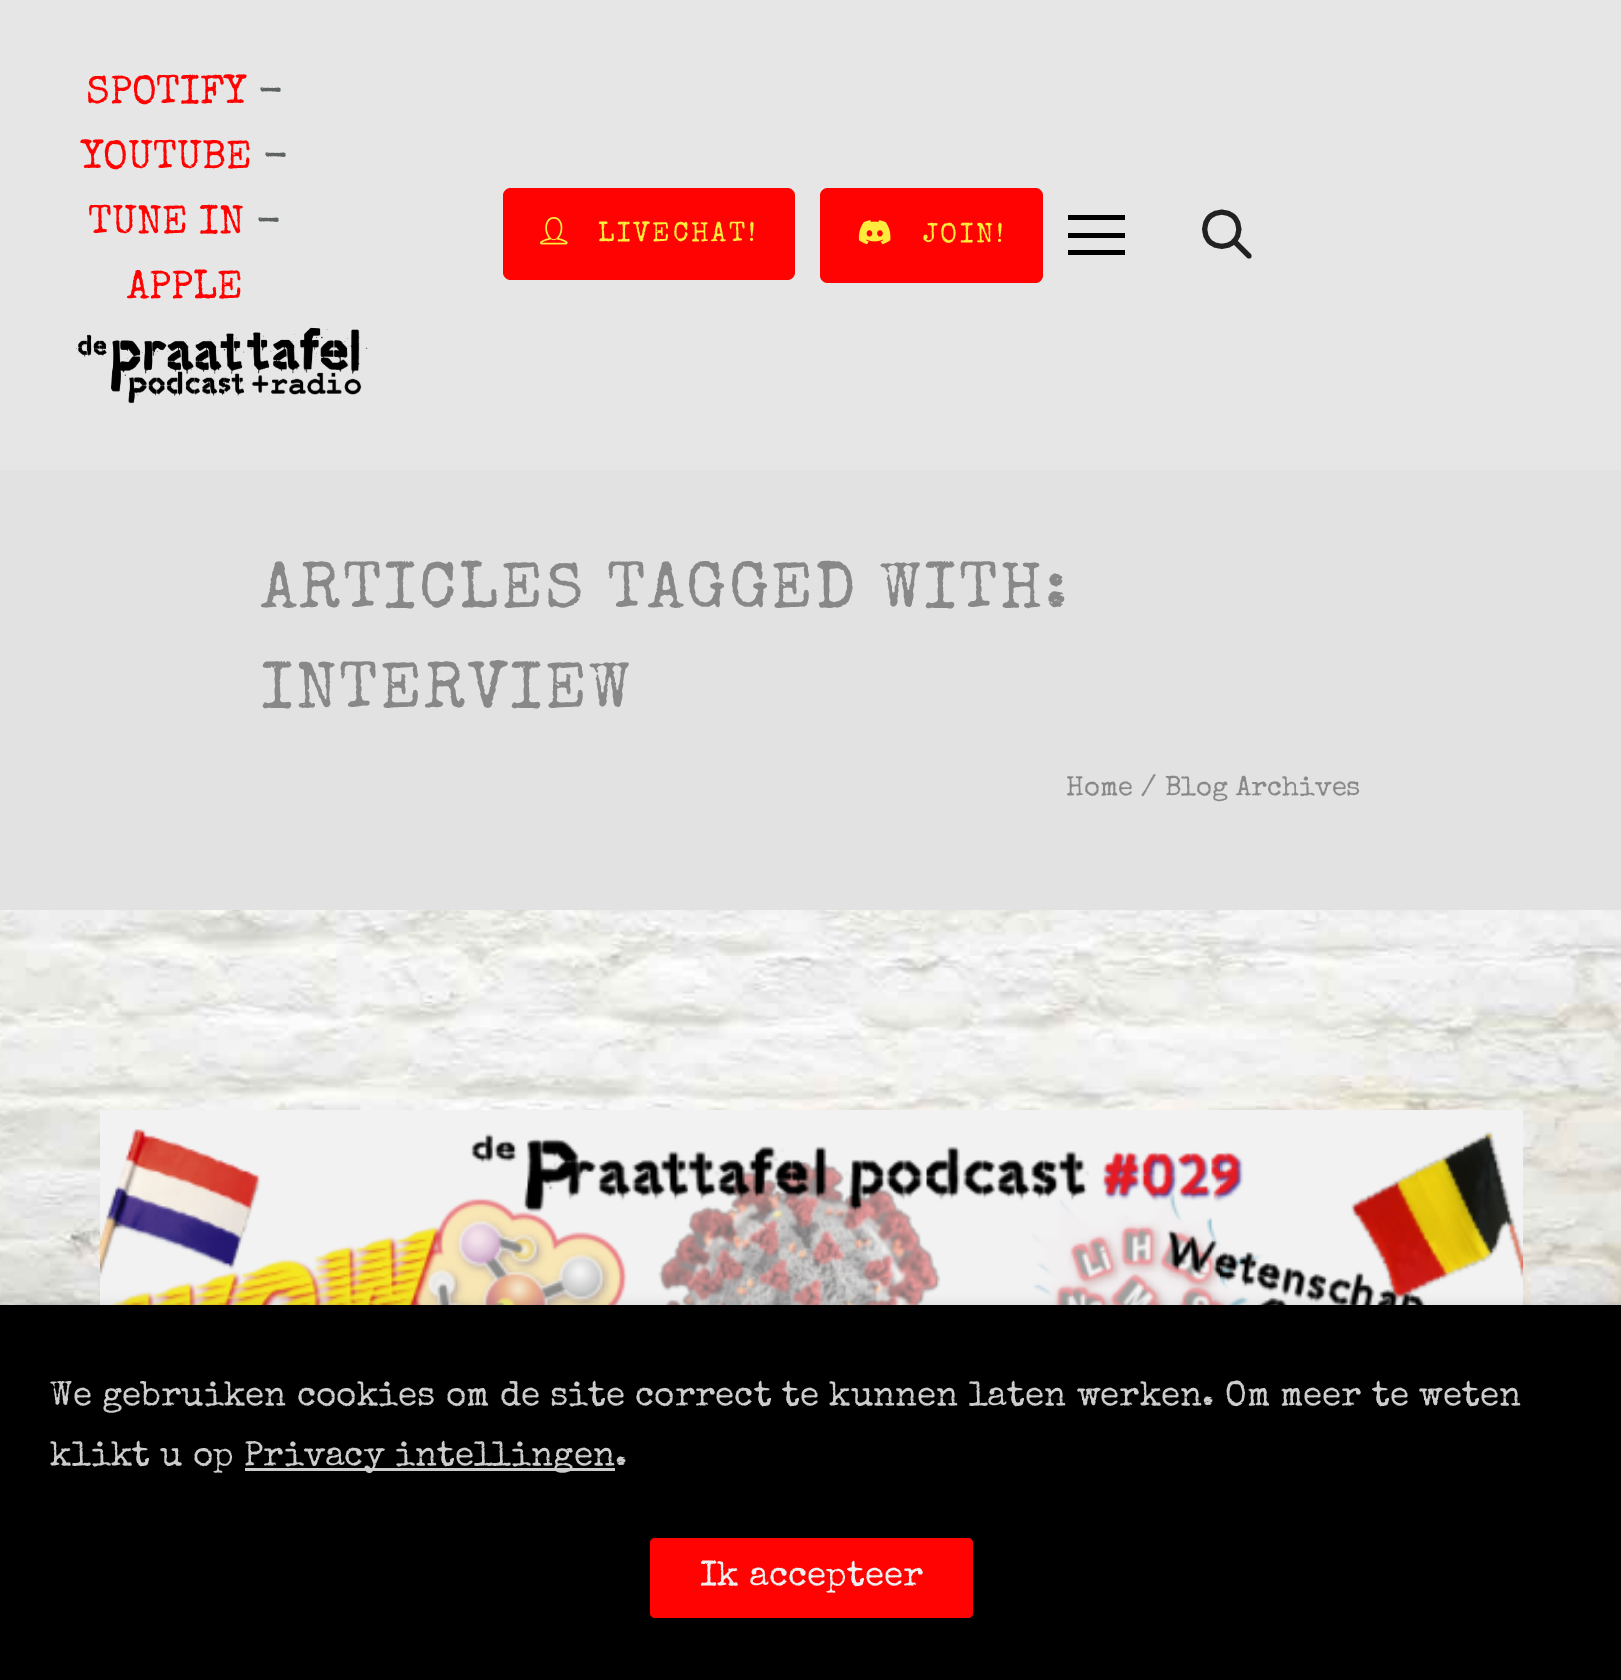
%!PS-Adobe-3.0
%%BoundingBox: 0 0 1621 1680
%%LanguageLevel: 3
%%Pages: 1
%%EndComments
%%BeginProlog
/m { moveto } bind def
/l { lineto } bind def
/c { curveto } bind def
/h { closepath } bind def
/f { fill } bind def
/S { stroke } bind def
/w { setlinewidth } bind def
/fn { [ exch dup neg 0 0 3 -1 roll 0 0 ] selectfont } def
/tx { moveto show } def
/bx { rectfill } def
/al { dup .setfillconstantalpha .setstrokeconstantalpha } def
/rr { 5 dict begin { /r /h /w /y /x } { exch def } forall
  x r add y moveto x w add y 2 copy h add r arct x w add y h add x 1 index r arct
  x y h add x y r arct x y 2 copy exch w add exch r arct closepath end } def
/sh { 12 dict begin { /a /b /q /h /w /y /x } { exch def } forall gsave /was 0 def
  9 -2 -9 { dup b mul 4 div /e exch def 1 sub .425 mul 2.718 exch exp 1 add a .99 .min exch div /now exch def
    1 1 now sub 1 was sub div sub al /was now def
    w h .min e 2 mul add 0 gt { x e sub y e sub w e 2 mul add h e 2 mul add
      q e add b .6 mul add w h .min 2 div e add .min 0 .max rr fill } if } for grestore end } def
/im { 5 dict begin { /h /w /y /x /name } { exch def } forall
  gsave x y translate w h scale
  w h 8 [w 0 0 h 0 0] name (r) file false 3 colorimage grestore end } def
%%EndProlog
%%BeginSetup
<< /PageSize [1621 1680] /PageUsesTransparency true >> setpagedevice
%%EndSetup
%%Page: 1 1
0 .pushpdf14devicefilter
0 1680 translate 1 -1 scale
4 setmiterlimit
0.886 setgray
0 0 1621 1680 bx
0.902 setgray
0 0 1621 470 bx
/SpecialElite-Regular 40 fn
1 0.008 0.008 setrgbcolor
(SPOTIFY) 86 103 tx
0.373 0.384 0.388 setrgbcolor
(-) 258 103 tx
1 0.008 0.008 setrgbcolor
(YOUTUBE) 81 168 tx
0.373 0.384 0.388 setrgbcolor
(-) 263 168 tx
1 0.008 0.008 setrgbcolor
(TUNE IN) 88 233 tx
0.373 0.384 0.388 setrgbcolor
(-) 256 233 tx
1 0.008 0.008 setrgbcolor
(APPLE) 127 298 tx
(image0.raw) 75 327 293 77 im
503 188 292 92 8 rr f
(image1.raw) 540 217 28 28 im
/SpecialElite-Regular 27.5 fn
1 0.922 0.231 setrgbcolor
598 241 m 2.5 0 (LIVECHAT!) ashow
1 0.008 0.008 setrgbcolor
820 188 223 95 8 rr f
(image2.raw) 858 220 33 25 im
1 0.922 0.231 setrgbcolor
923 242 m 2.5 0 (JOIN!) ashow
0 setgray
1068 215 57 5 bx
1068 233 57 5 bx
1068 250 57 5 bx
0.129 setgray
5 w
1209.5 217 m 1216.5 210.5 1227 210.5 1234 217 c 1240.5 224 1240.5 234.5 1234 241.5 c 1227 248 1216.5 248 1209.5 241.5 c 1203 234.5 1203 224 1209.5 217 c h S
1 setlinecap
1234 241 m 1249 256 l S
/SpecialElite-Regular 65 fn
0.533 setgray
261 607 m 2.5 0 (ARTICLES TAGGED WITH:) ashow
261 707 m 2.5 0 (INTERVIEW) ashow
/SpecialElite-Regular 27.5 fn
(Home / Blog Archives) 1066 795 tx
(image3.raw) 0 910 1621 395 im
0.949 setgray
100 1110 1423 195 bx
(image4.raw) 100 1129 1423 176 im
0.047 0.047 0.051 setrgbcolor
0 1303 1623 375 0 5 0.1 sh
0 setgray
0 1305 1621 375 bx
/SpecialElite-Regular 35 fn
0.8 setgray
(We gebruiken cookies om de site correct te kunnen laten werken. Om meer te weten) 50 1405 tx
(klikt u op) 50 1465 tx
245 1468 370 3 bx
(Privacy intellingen.) 244 1465 tx
1 0.008 0.008 setrgbcolor
650 1538 323 80 5 rr f
0.937 setgray
(Ik accepteer) 700 1585 tx
.poppdf14devicefilter showpage
%%EOF
